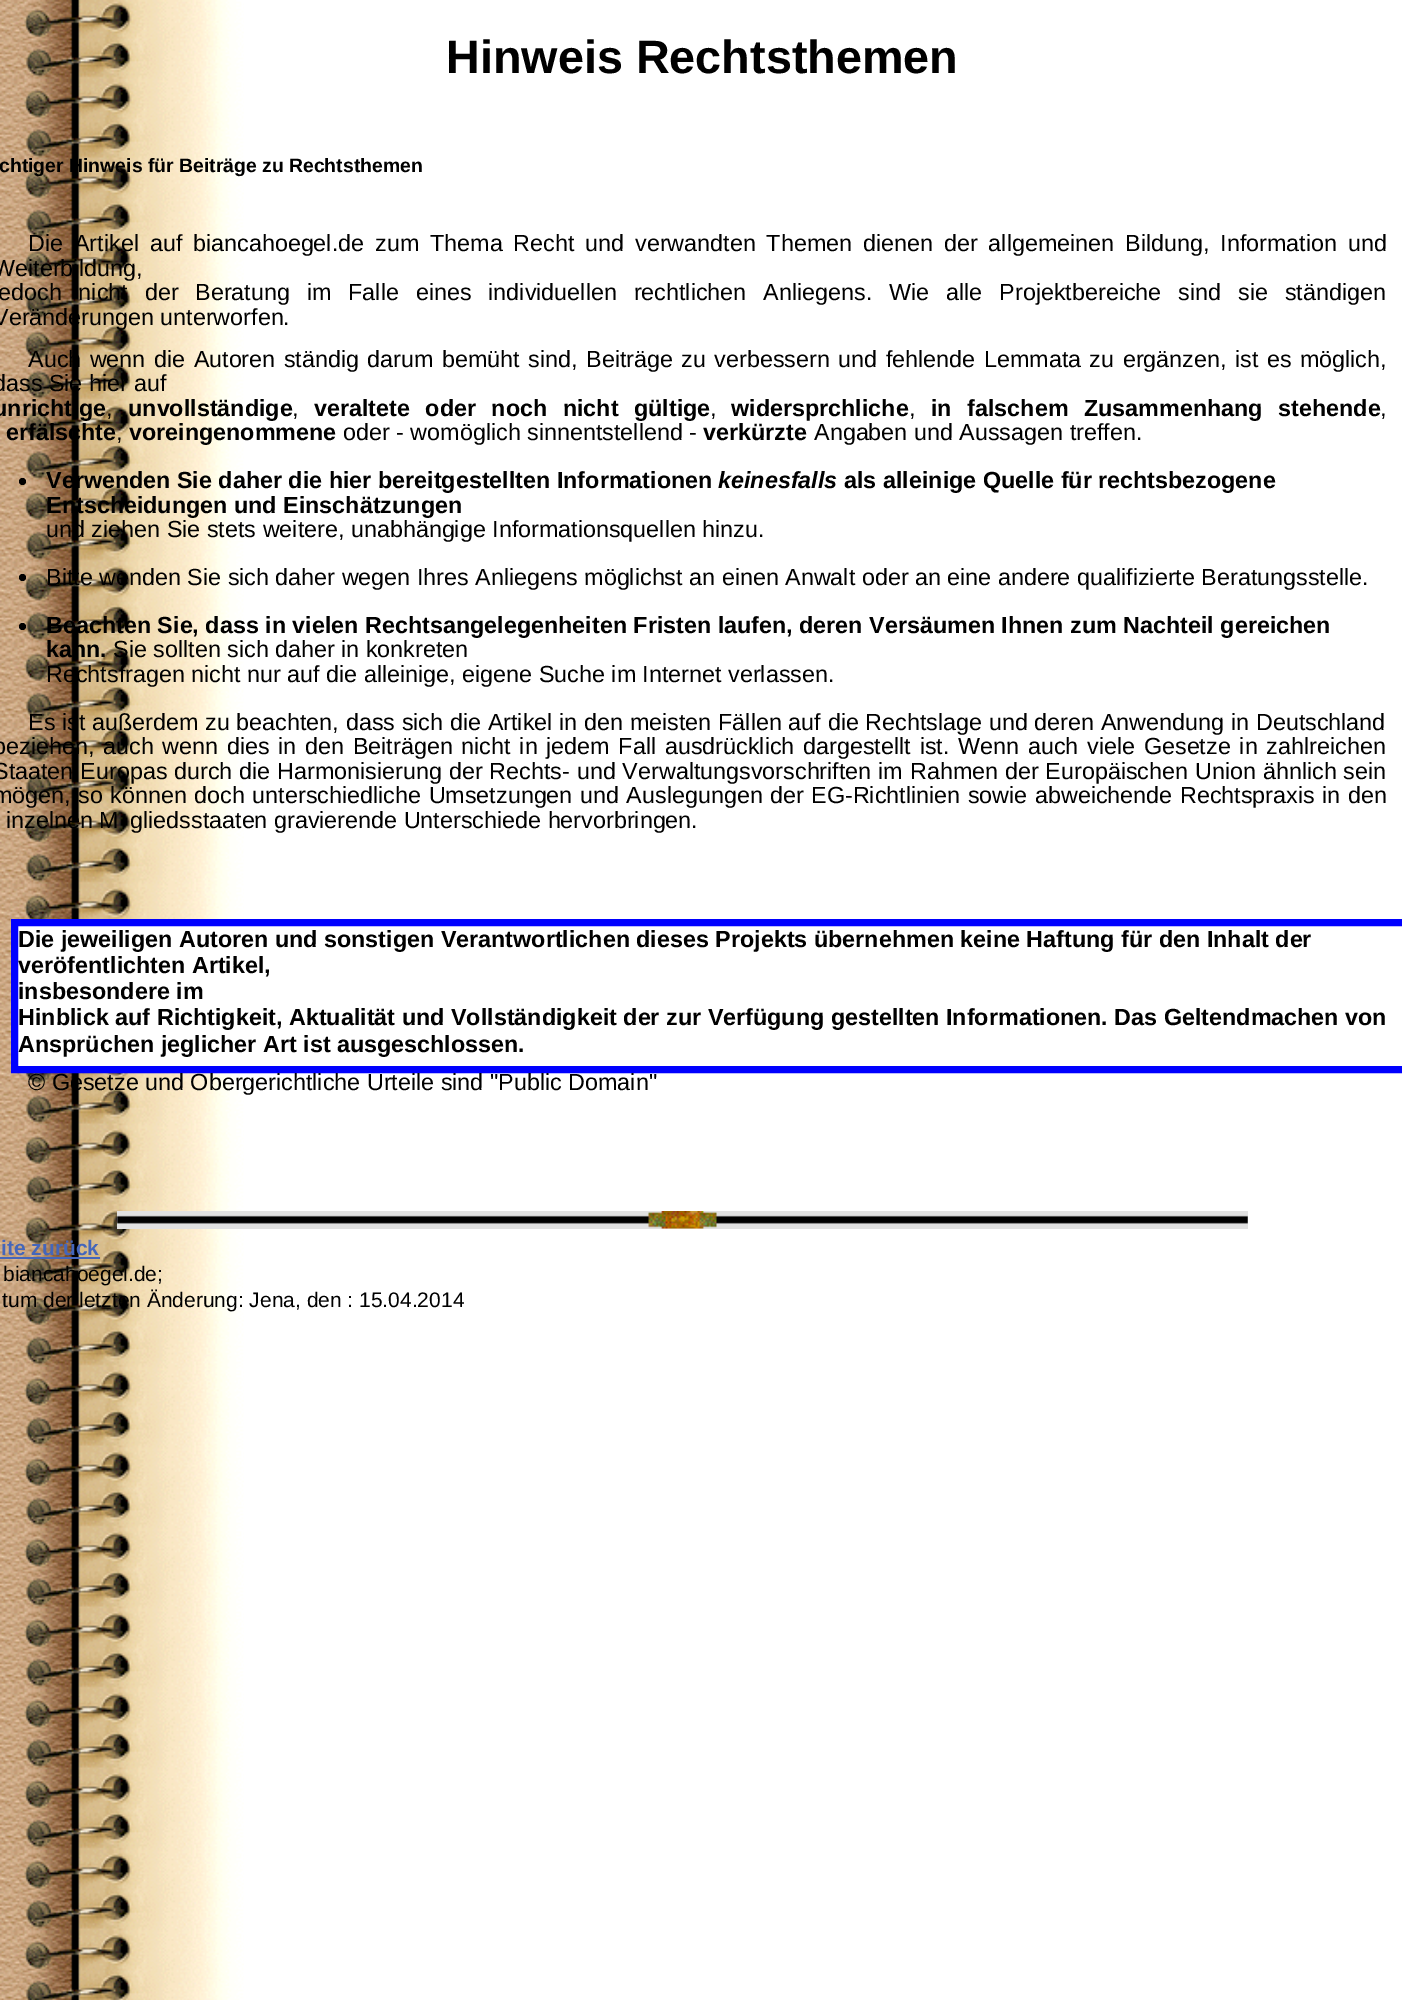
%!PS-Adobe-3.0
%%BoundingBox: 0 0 1402 2000
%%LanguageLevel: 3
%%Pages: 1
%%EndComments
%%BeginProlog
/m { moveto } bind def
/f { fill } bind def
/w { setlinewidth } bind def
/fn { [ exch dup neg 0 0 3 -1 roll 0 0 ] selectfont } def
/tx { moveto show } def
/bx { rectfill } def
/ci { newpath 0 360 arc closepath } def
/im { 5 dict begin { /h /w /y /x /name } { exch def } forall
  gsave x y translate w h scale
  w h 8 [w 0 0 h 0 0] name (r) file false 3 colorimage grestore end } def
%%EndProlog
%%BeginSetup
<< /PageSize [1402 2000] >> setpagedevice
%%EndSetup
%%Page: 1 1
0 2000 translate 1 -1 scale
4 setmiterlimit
1 setgray
0 0 1402 2000 bx
(image0.raw) 0 0 244 2000 im
/LiberationSans-Bold 46.75 fn
0 setgray
(Hinweis Rechtsthemen) 446 73 tx
/LiberationSans-Bold 19.4 fn
(chtiger Hinweis für Beiträge zu Rechtsthemen) -1 172 tx
/LiberationSans-Regular 23.33 fn
28 251 m 4.4 0 32 (Die Artikel auf biancahoegel.de zum Thema Recht und verwandten Themen dienen der allgemeinen Bildung, Information und) widthshow
(Weiterbildung,) -7 276 tx
-2 300 m 10.4 0 32 (edoch nicht der Beratung im Falle eines individuellen rechtlichen Anliegens. Wie alle Projektbereiche sind sie ständigen) widthshow
(Veränderungen unterworfen.) -7 325 tx
28 367 m 2 0 32 (Auch wenn die Autoren ständig darum bemüht sind, Beiträge zu verbessern und fehlende Lemmata zu ergänzen, ist es möglich,) widthshow
(dass Sie hier auf) -7 391 tx
/LiberationSans-Bold 23.33 fn
(unrichtige) -7 416 tx
/LiberationSans-Regular 23.33 fn
(,) 106 416 tx
/LiberationSans-Bold 23.33 fn
(unvollständige) 128 416 tx
/LiberationSans-Regular 23.33 fn
(,) 292 416 tx
/LiberationSans-Bold 23.33 fn
314 416 m 9 0 32 (veraltete oder noch nicht gültige) widthshow
/LiberationSans-Regular 23.33 fn
(,) 710 416 tx
/LiberationSans-Bold 23.33 fn
(widersprchliche) 731 416 tx
/LiberationSans-Regular 23.33 fn
(,) 909 416 tx
/LiberationSans-Bold 23.33 fn
931 416 m 9 0 32 (in falschem Zusammenhang stehende) widthshow
/LiberationSans-Regular 23.33 fn
(,) 1380 416 tx
/LiberationSans-Bold 23.33 fn
(erfälschte) 6 440 tx
/LiberationSans-Regular 23.33 fn
(,) 116 440 tx
/LiberationSans-Bold 23.33 fn
(voreingenommene) 129 440 tx
/LiberationSans-Regular 23.33 fn
(oder - womöglich sinnentstellend -) 343 440 tx
/LiberationSans-Bold 23.33 fn
(verkürzte) 703 440 tx
/LiberationSans-Regular 23.33 fn
(Angaben und Aussagen treffen.) 814 440 tx
22.5 481.5 3.5 ci f
/LiberationSans-Bold 23.33 fn
(Verwenden Sie daher die hier bereitgestellten Informationen) 46 488 tx
/LiberationSans-BoldItalic 23.33 fn
(keinesfalls) 718 488 tx
/LiberationSans-Bold 23.33 fn
(als alleinige Quelle für rechtsbezogene) 844 488 tx
(Entscheidungen und Einschätzungen) 46 513 tx
/LiberationSans-Regular 23.33 fn
(und ziehen Sie stets weitere, unabhängige Informationsquellen hinzu.) 46 537 tx
22.5 577.5 3.5 ci f
(Bitte wenden Sie sich daher wegen Ihres Anliegens möglichst an einen Anwalt oder an eine andere qualifizierte Beratungsstelle.) 46 585 tx
22.5 626.5 3.5 ci f
/LiberationSans-Bold 23.33 fn
(Beachten Sie, dass in vielen Rechtsangelegenheiten Fristen laufen, deren Versäumen Ihnen zum Nachteil gereichen) 46 633 tx
(kann.) 46 657 tx
/LiberationSans-Regular 23.33 fn
(Sie sollten sich daher in konkreten) 113 657 tx
(Rechtsfragen nicht nur auf die alleinige, eigene Suche im Internet verlassen.) 46 682 tx
28 730 m 0.25 0 32 (Es ist außerdem zu beachten, dass sich die Artikel in den meisten Fällen auf die Rechtslage und deren Anwendung in Deutschland) widthshow
-7 754 m 2.25 0 32 (beziehen, auch wenn dies in den Beiträgen nicht in jedem Fall ausdrücklich dargestellt ist. Wenn auch viele Gesetze in zahlreichen) widthshow
-7 779 m 0.4 0 32 (Staaten Europas durch die Harmonisierung der Rechts- und Verwaltungsvorschriften im Rahmen der Europäischen Union ähnlich sein) widthshow
-7 803 m 1 0 32 (mögen, so können doch unterschiedliche Umsetzungen und Auslegungen der EG-Richtlinien sowie abweichende Rechtspraxis in den) widthshow
(inzelnen M) 6 828 tx
(gliedsstaaten gravierende Unterschiede hervorbringen.) 130 828 tx
1 setgray
18 926 226 140 bx
0 0 1 setrgbcolor
7 w
14.5 922.5 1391 147 rectstroke
/LiberationSans-Bold 23.33 fn
0 setgray
(Die jeweiligen Autoren und sonstigen Verantwortlichen dieses Projekts übernehmen keine Haftung für den Inhalt der) 18 947 tx
(veröfentlichten Artikel,) 18 973 tx
(insbesondere im) 18 999 tx
(Hinblick auf Richtigkeit, Aktualität und Vollständigkeit der zur Verfügung gestellten Informationen. Das Geltendmachen von) 18 1025 tx
(Ansprüchen jeglicher Art ist ausgeschlossen.) 18 1052 tx
/LiberationSans-Regular 23.33 fn
(© Gesetze und Obergerichtliche Urteile sind "Public Domain") 28 1090 tx
0.882 setgray
117 1211 1131 18 bx
(image1.raw) 117 1211 1131 18 im
/LiberationSans-Bold 21 fn
0.267 0.4 0.733 setrgbcolor
(ite zurück) 1 1255 tx
0 1257 100 2 bx
/LiberationSans-Regular 21 fn
0 setgray
(biancahoegel.de;) 3 1281 tx
(tum der letzten Änderung: Jena, den : 15.04.2014) 2 1307 tx
showpage
%%EOF
